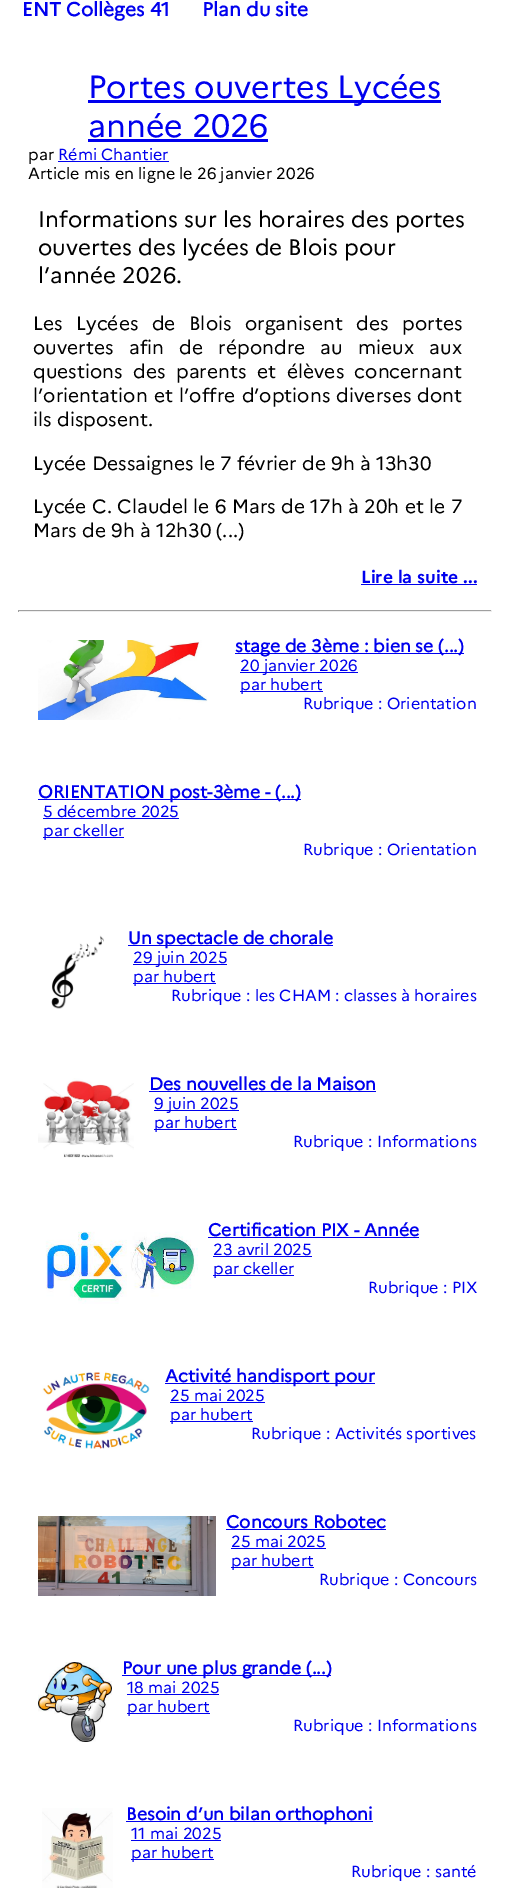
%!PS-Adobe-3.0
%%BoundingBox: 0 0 510 1889
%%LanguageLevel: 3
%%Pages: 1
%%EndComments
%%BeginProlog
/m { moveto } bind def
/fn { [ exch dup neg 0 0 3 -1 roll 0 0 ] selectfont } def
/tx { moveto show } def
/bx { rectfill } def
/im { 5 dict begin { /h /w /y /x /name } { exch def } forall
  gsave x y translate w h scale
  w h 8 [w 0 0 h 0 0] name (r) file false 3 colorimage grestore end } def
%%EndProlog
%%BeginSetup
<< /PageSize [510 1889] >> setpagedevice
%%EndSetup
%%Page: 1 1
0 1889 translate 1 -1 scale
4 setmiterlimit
1 setgray
0 0 510 1889 bx
/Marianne-Bold 19.2 fn
0 0 0.933 setrgbcolor
(ENT Collèges 41) 22 16 tx
(Plan du site) 202 16 tx
88 100 353 3 bx
/Marianne-Regular 32 fn
(Portes ouvertes Lycées) 88 98 tx
(année 2026) 88 137 tx
88 139 180 3 bx
/Marianne-Regular 16 fn
0 setgray
(par) 28 160 tx
0 0 0.933 setrgbcolor
(Rémi Chantier) 58 160 tx
58 161 111 1 bx
0 setgray
(Article mis en ligne le 26 janvier 2026) 28 179 tx
/Marianne-Regular 22.4 fn
(Informations sur les horaires des portes) 38 227 tx
(ouvertes des lycées de Blois pour) 38 255 tx
(l’année 2026.) 38 283 tx
/Marianne-Regular 19.2 fn
33 330 m 8.25 0 32 (Les Lycées de Blois organisent des portes) widthshow
33 354 m 10 0 32 (ouvertes afin de répondre au mieux aux) widthshow
33 378 m 5.25 0 32 (questions des parents et élèves concernant) widthshow
33 402 m 1 0 32 (l’orientation et l’offre d’options diverses dont) widthshow
(ils disposent.) 33 426 tx
(Lycée Dessaignes le 7 février de 9h à 13h30) 33 470 tx
33 513 m 0.2 0 32 (Lycée C. Claudel le 6 Mars de 17h à 20h et le 7) widthshow
(Mars de 9h à 12h30 \(...\)) 33 537 tx
/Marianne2-Bold 17.6 fn
0 0 0.933 setrgbcolor
(Lire la suite ...) 361 583 tx
361 584 116 1 bx
0.624 setgray
18 610 474 1 bx
0.933 setgray
491 610 1 2 bx
18 611 474 1 bx
0.624 setgray
18 610 1 2 bx
(image0.raw) 38 640 170 80 im
0 0 0.933 setrgbcolor
235 653 229 1 bx
/Marianne-Bold 17.6 fn
(stage de 3ème : bien se \(...\)) 235 652 tx
240 672 118 1 bx
/Marianne-Regular 16 fn
(20 janvier 2026) 240 671 tx
240 691 83 1 bx
(par hubert) 240 690 tx
(Rubrique : Orientation) 303 709 tx
38 799 263 1 bx
/Marianne-Bold 17.6 fn
(ORIENTATION post-3ème - \(...\)) 38 798 tx
/Marianne-Regular 16 fn
(5 décembre 2025) 43 817 tx
43 818 136 1 bx
43 837 81 1 bx
(par ckeller) 43 836 tx
(Rubrique : Orientation) 303 855 tx
(image1.raw) 51 935 53 74 im
128 945 205 1 bx
/Marianne-Bold 17.6 fn
(Un spectacle de chorale) 128 944 tx
133 964 94 1 bx
/Marianne-Regular 16 fn
(29 juin 2025) 133 963 tx
133 983 83 1 bx
(par hubert) 133 982 tx
(Rubrique : les CHAM : classes à horaires) 171 1001 tx
(image2.raw) 38 1078 96 80 im
/Marianne-Bold 17.6 fn
(Des nouvelles de la Maison) 149 1090 tx
149 1091 227 1 bx
154 1110 85 1 bx
/Marianne-Regular 16 fn
(9 juin 2025) 154 1109 tx
154 1129 83 1 bx
(par hubert) 154 1128 tx
(Rubrique : Informations) 293 1147 tx
/Marianne-Bold 17.6 fn
(Certification PIX - Année) 208 1236 tx
208 1237 211 1 bx
(image3.raw) 45 1231 153 73 im
/Marianne-Regular 16 fn
(23 avril 2025) 213 1255 tx
213 1256 99 1 bx
213 1275 81 1 bx
(par ckeller) 213 1274 tx
(Rubrique : PIX) 368 1293 tx
(image4.raw) 42 1372 108 77 im
165 1383 210 1 bx
/Marianne-Bold 17.6 fn
(Activité handisport pour) 165 1382 tx
/Marianne-Regular 16 fn
(25 mai 2025) 170 1401 tx
170 1402 95 1 bx
170 1421 83 1 bx
(par hubert) 170 1420 tx
(Rubrique : Activités sportives) 251 1439 tx
(image5.raw) 38 1516 178 80 im
/Marianne-Bold 17.6 fn
(Concours Robotec) 226 1528 tx
226 1529 160 1 bx
/Marianne-Regular 16 fn
(25 mai 2025) 231 1547 tx
231 1548 95 1 bx
231 1567 83 1 bx
(par hubert) 231 1566 tx
(Rubrique : Concours) 319 1585 tx
(image6.raw) 38 1662 74 80 im
122 1675 209 1 bx
/Marianne-Bold 17.6 fn
(Pour une plus grande \(...\)) 122 1674 tx
/Marianne-Regular 16 fn
(18 mai 2025) 127 1693 tx
127 1694 92 1 bx
127 1713 83 1 bx
(par hubert) 127 1712 tx
(Rubrique : Informations) 293 1731 tx
(image7.raw) 42 1808 71 80 im
126 1821 247 1 bx
/Marianne-Bold 17.6 fn
(Besoin d’un bilan orthophoni) 126 1820 tx
/Marianne-Regular 16 fn
(11 mai 2025) 131 1839 tx
131 1840 90 1 bx
131 1859 83 1 bx
(par hubert) 131 1858 tx
(Rubrique : santé) 351 1877 tx
showpage
%%EOF
